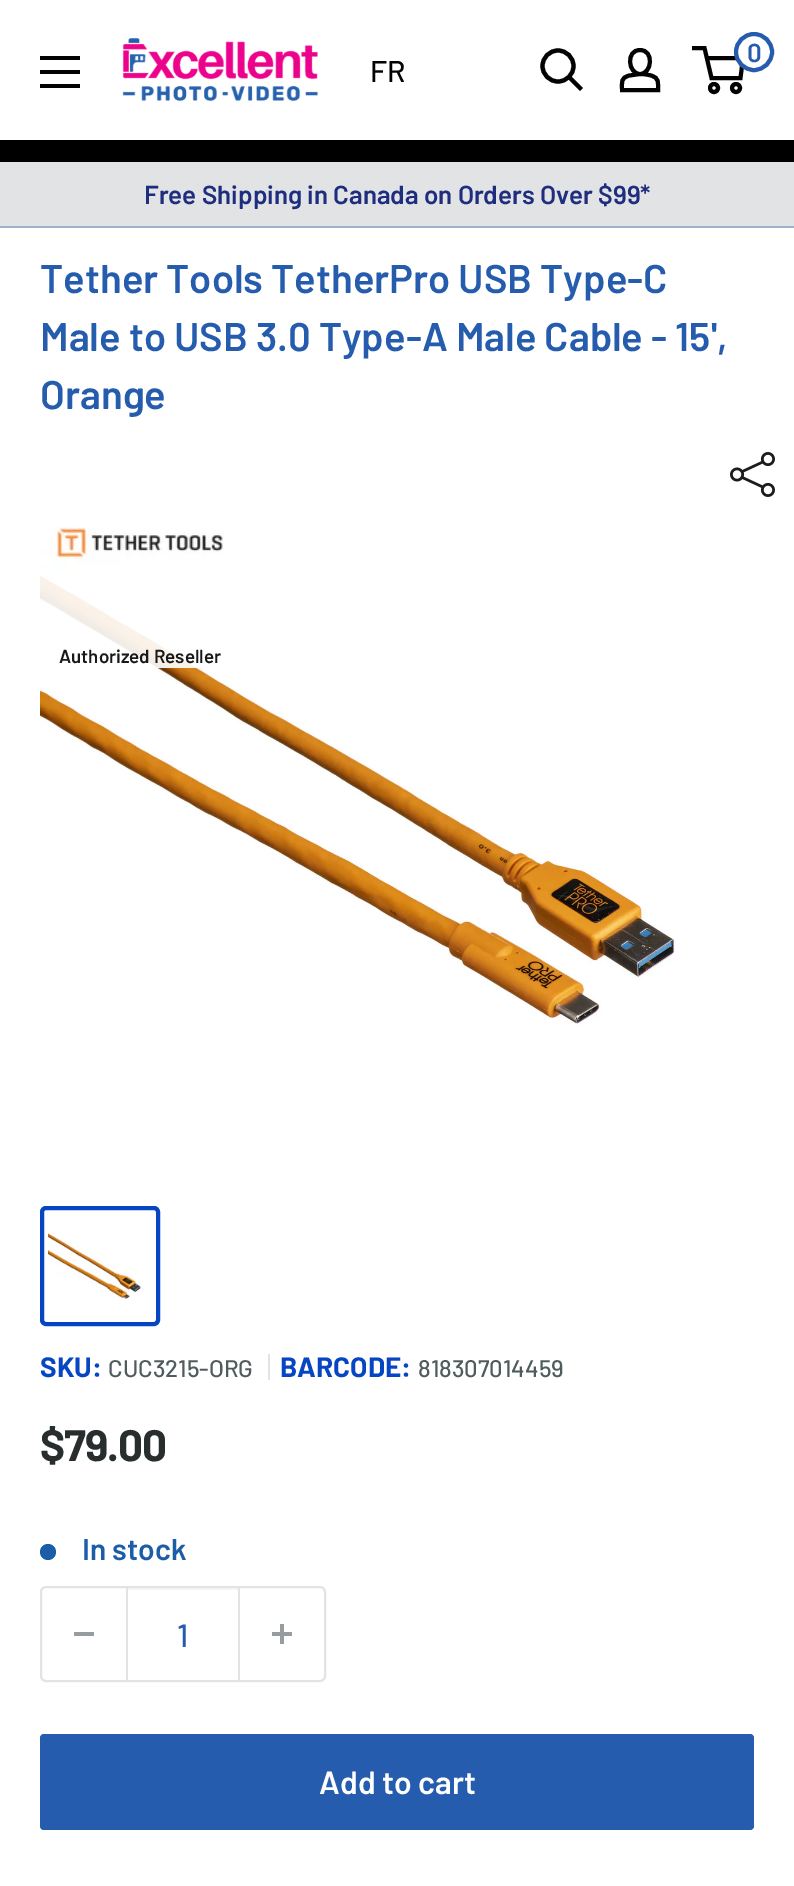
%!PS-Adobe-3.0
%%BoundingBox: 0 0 794 1886
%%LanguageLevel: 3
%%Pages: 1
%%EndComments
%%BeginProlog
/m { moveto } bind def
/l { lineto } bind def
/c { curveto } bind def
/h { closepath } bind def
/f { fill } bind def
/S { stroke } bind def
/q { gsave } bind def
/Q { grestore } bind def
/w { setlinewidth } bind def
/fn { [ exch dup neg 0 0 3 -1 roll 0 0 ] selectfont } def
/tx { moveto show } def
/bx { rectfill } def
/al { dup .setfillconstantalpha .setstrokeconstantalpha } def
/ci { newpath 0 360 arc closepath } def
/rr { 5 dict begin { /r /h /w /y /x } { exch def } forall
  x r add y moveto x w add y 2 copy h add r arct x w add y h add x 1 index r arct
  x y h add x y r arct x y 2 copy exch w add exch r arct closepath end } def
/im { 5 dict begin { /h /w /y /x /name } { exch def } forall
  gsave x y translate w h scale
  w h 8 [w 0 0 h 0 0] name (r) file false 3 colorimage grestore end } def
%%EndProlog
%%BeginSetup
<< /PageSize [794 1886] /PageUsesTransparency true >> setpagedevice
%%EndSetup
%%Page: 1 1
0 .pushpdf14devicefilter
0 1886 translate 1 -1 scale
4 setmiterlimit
1 setgray
0 0 794 1886 bx
(image0.raw) 122 37 196 65 im
0.012 setgray
4.2 w
2 setlinecap
580 88 m 569.5 77.5 l S
0 setlinecap
558 66 15.5 ci S
4 w
640 74 m 644 74 647.5 74.5 651 75.5 c 659.5 78 658 82.5 658 90 c 622 90 l 622 82 620.5 77.5 629.5 75.5 c h 640 74 m 628 74 625.5 50 640 50 c 654.5 50 652 74 640 74 c h S
714 88 4 ci S
736 88 4 ci S
706.5 58 m 743 58 l 740.5 78 l 711.5 78 l 704.5 48 l 692 48 l S
1 setgray
754 52 18 ci q f Q
0.145 0.361 0.678 setrgbcolor
S
/Barlow-SemiBold 26 fn
(0) 747 62 tx
0.012 setgray
40 84 m 80 84 l 80 88 l 40 88 l h 40 56 m 80 56 l 80 60 l 40 60 l h 40 70 m 80 70 l 80 74 l 40 74 l h eofill
/Barlow-Medium 30 fn
(FR) 370 82 tx
0 setgray
0 140 794 22 bx
0.882 0.89 0.894 setrgbcolor
0 162 794 64 bx
0.62 0.702 0.796 setrgbcolor
0 226 794 2 bx
/Barlow-SemiBold 26 fn
0.118 0.176 0.49 setrgbcolor
(Free Shipping in Canada on Orders Over $99*) 144 204 tx
/Barlow-SemiBold 40 fn
0.145 0.361 0.678 setrgbcolor
(Tether Tools TetherPro USB Type-C) 40 293 tx
(Male to USB 3.0 Type-A Male Cable - 15',) 40 351 tx
(Orange) 40 409 tx
(image1.raw) 730 452 45 45 im
(image2.raw) 40 574 638 451 im
0.027 0.275 0.761 setrgbcolor
42 1208 116 116 4 rr S
(image3.raw) 48 1232 96 68 im
(image4.raw) 40 527 184 115 im
0.9 al
1 setgray
107 642 95 26 bx
/Barlow-SemiBold 18.75 fn
1 al
0.098 setgray
(Authorized Reseller) 59 663 tx
/Barlow-Bold 28 fn
0.027 0.275 0.761 setrgbcolor
(SKU:) 40 1377 tx
/Barlow-Medium 24 fn
0.314 0.357 0.369 setrgbcolor
(CUC3215-ORG) 108 1377 tx
0.882 0.89 0.894 setrgbcolor
268 1354 2 26 bx
/Barlow-Bold 28 fn
0.027 0.275 0.761 setrgbcolor
(BARCODE:) 280 1377 tx
/Barlow-Medium 24 fn
0.314 0.357 0.369 setrgbcolor
(818307014459) 418 1377 tx
/Barlow-Bold 44 fn
0.157 0.176 0.18 setrgbcolor
40 1461 m -1 0 ($79.00) ashow
0.106 0.369 0.655 setrgbcolor
48 1552 8 ci f
/Barlow-SemiBold 30 fn
(In stock) 82 1560 tx
0.882 0.89 0.894 setrgbcolor
2 w
41 1587 284 94 5 rr S
0.588 0.616 0.62 setrgbcolor
74 1632 20 4 bx
0.953 0.957 0.957 setrgbcolor
128 1588 110 2 bx
0.882 0.89 0.894 setrgbcolor
238 1588 2 92 bx
126 1588 2 92 bx
/Barlow-Medium 32 fn
0.145 0.361 0.678 setrgbcolor
(1) 177 1647 tx
(image5.raw) 272 1624 20 20 im
40 1734 714 96 4 rr f
/Barlow-SemiBold 32 fn
1 setgray
(Add to cart) 319 1794 tx
.poppdf14devicefilter showpage
%%EOF
